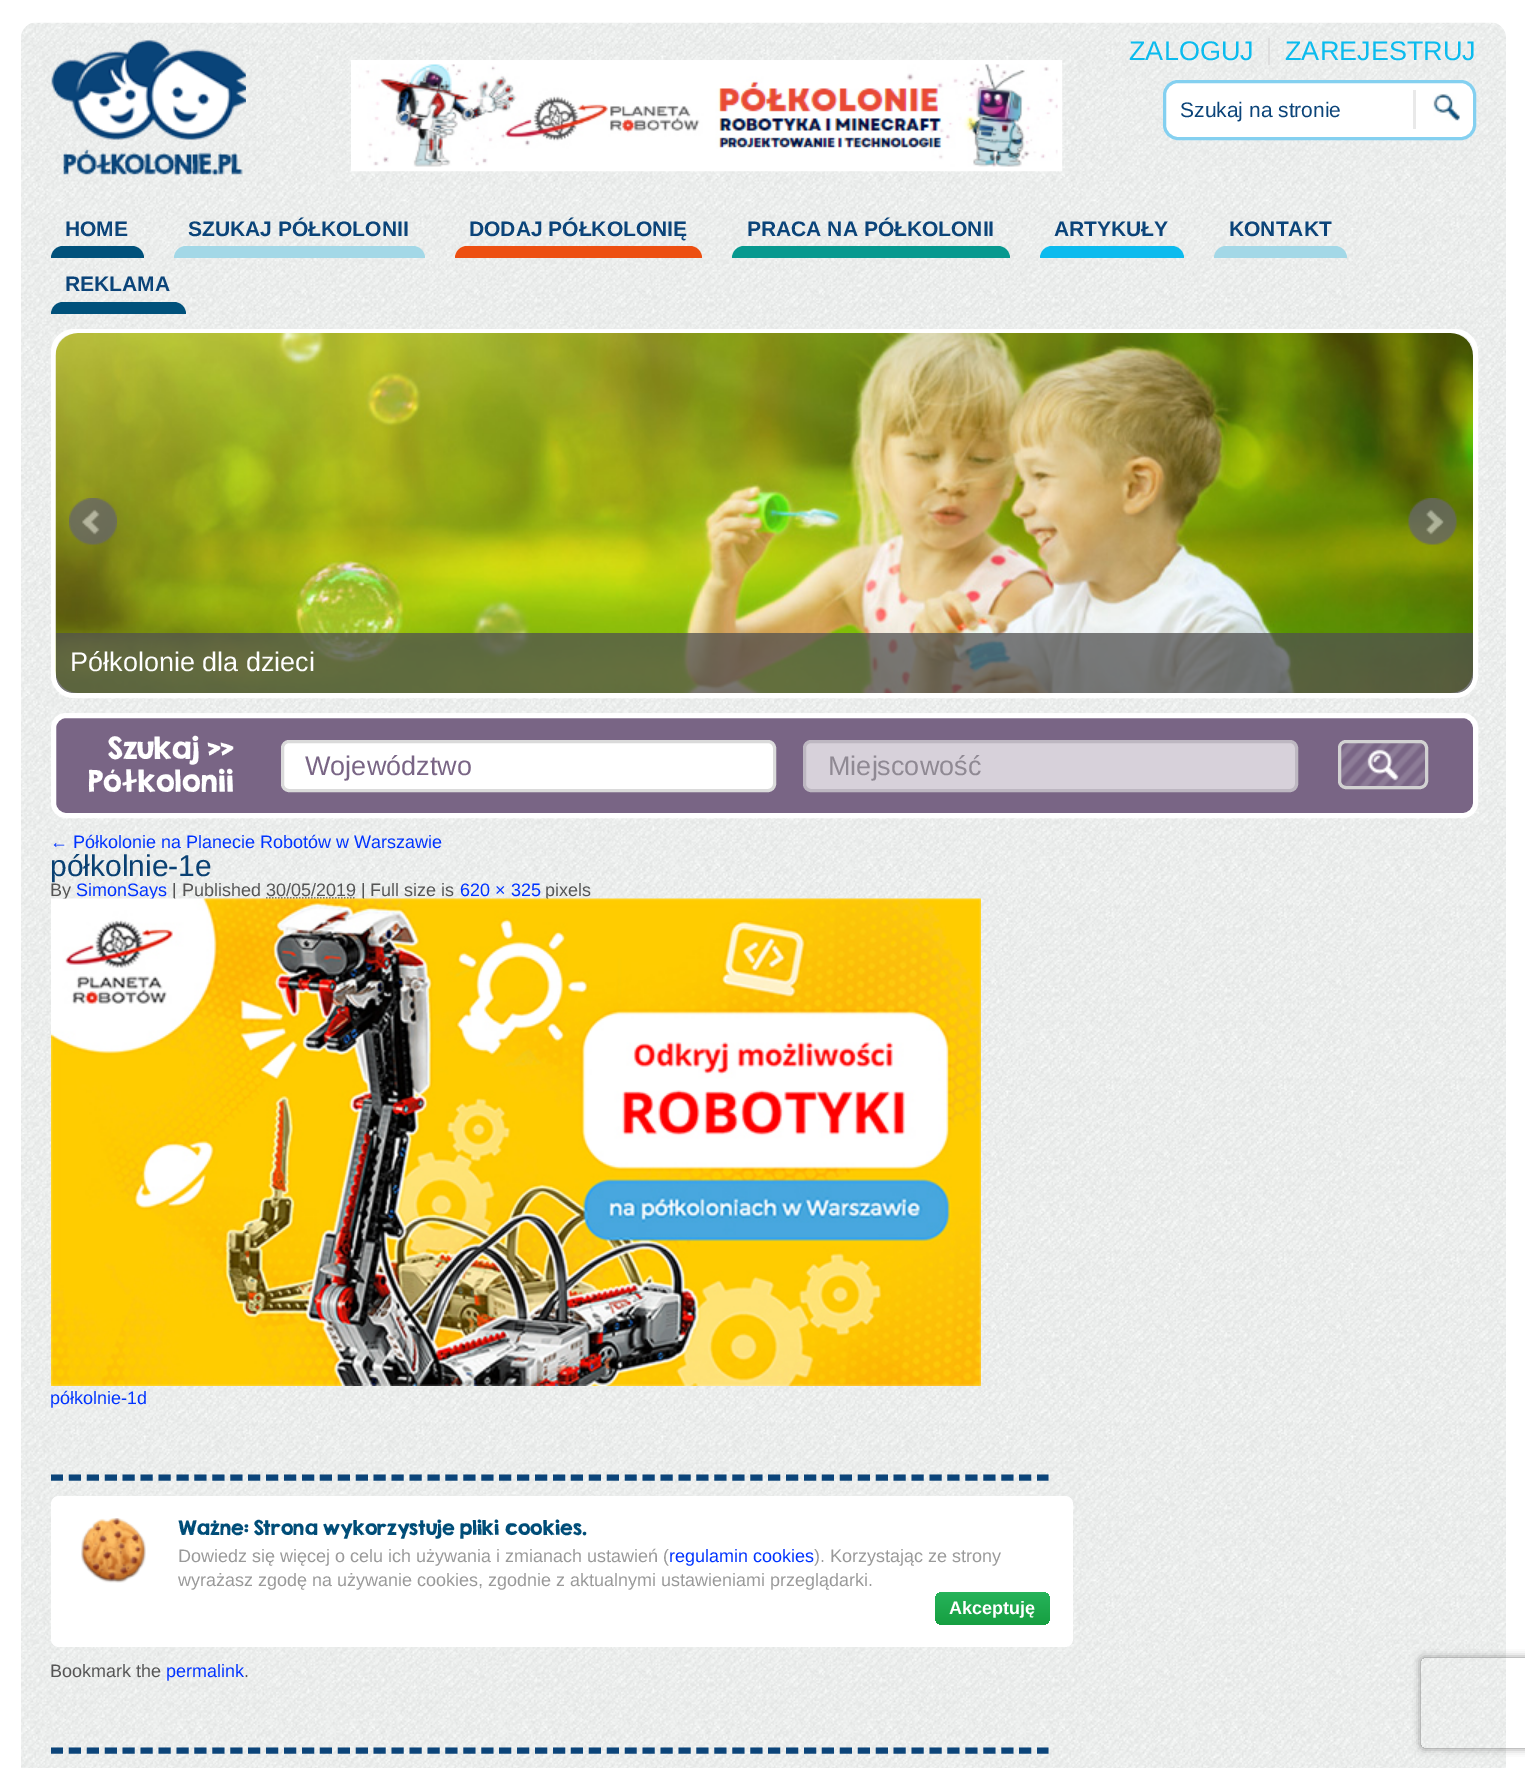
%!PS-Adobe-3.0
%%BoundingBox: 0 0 1525 1768
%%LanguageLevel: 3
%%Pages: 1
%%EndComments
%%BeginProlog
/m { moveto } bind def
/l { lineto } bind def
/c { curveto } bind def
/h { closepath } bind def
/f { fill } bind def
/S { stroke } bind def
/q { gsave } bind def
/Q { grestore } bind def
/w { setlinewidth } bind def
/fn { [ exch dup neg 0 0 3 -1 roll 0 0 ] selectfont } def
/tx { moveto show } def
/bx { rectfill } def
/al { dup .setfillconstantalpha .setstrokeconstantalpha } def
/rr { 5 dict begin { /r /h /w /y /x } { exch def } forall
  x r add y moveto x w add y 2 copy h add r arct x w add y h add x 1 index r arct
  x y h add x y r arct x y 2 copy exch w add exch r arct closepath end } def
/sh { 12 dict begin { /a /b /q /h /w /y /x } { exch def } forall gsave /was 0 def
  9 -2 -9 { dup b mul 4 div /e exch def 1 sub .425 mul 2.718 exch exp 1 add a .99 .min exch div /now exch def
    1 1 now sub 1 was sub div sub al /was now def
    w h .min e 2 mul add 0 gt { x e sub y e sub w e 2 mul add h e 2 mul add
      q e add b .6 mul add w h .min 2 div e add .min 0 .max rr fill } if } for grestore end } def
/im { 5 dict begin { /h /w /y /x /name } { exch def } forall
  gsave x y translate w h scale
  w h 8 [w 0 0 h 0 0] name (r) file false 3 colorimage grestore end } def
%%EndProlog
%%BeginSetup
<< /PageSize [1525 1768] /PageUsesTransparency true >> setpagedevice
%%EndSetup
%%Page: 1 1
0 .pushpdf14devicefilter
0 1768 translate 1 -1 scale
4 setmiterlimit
1 setgray
0 0 1525 1768 bx
(image0.raw) 21 22 1485 1746 im
(image1.raw) 51 40 195 136 im
0.867 setgray
1268 38 2 27 bx
/LiberationSans-Regular 27 fn
0.043 0.733 0.933 setrgbcolor
(ZALOGUJ) 1129 60 tx
(ZAREJESTRUJ) 1285 60 tx
1 setgray
5 w
353.5 62.5 706 106 rectstroke
(image2.raw) 356 64 702 103 im
1164.5 81.5 310 57 13.5 rr q f Q
0.518 0.816 0.941 setrgbcolor
3 w
S
0.914 setgray
1413 90 3 39 bx
/LiberationSans-Regular 21 fn
0.043 0.267 0.475 setrgbcolor
(Szukaj na stronie) 1180 117 tx
(image3.raw) 1433 93 27 28 im
/LiberationSans-Bold 21 fn
(HOME) 65 236 tx
0 0.318 0.482 setrgbcolor
63 246 m 132 246 l 138.5 246 144 251.5 144 258 c 51 258 l 51 251.5 56.5 246 63 246 c h f
0.043 0.267 0.475 setrgbcolor
(SZUKAJ PÓŁKOLONII) 188 236 tx
0.639 0.847 0.906 setrgbcolor
186 246 m 413 246 l 419.5 246 425 251.5 425 258 c 174 258 l 174 251.5 179.5 246 186 246 c h f
0.043 0.267 0.475 setrgbcolor
(DODAJ PÓŁKOLONIĘ) 469 236 tx
0.929 0.31 0.067 setrgbcolor
467 246 m 690 246 l 696.5 246 702 251.5 702 258 c 455 258 l 455 251.5 460.5 246 467 246 c h f
0.043 0.267 0.475 setrgbcolor
(PRACA NA PÓŁKOLONII) 747 236 tx
0.027 0.6 0.561 setrgbcolor
744 246 m 998 246 l 1004.5 246 1010 251.5 1010 258 c 732 258 l 732 251.5 737.5 246 744 246 c h f
0.043 0.267 0.475 setrgbcolor
(ARTYKUŁY) 1054 236 tx
0.047 0.733 0.933 setrgbcolor
1052 246 m 1172 246 l 1178.5 246 1184 251.5 1184 258 c 1040 258 l 1040 251.5 1045.5 246 1052 246 c h f
0.043 0.267 0.475 setrgbcolor
(KONTAKT) 1229 236 tx
0.639 0.847 0.906 setrgbcolor
1226 246 m 1335 246 l 1341.5 246 1347 251.5 1347 258 c 1214 258 l 1214 251.5 1219.5 246 1226 246 c h f
0.043 0.267 0.475 setrgbcolor
(REKLAMA) 65 291 tx
0 0.318 0.482 setrgbcolor
63 302 m 174 302 l 180.5 302 186 307.5 186 314 c 51 314 l 51 307.5 56.5 302 63 302 c h f
1 setgray
5 w
53.5 331.5 1422 364 20.5 rr S
(image6.raw) 55 333 1418 360 im
(image4.raw) 69 498 48 47 im
(image5.raw) 1408 498 49 47 im
0.75 al
0.314 setgray
56 633 m 1473 633 l 1473 675 l 1473 685 1465 693 1455 693 c 74 693 l 64 693 56 685 56 675 c h f
/LiberationSans-Regular 27 fn
1 al
1 setgray
(Półkolonie dla dzieci) 70 671 tx
0.475 0.396 0.522 setrgbcolor
53.5 715.5 1422 100 12.5 rr q f Q
1 setgray
S
/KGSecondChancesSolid-Regular 27 fn
(Szukaj >>) 108 759 tx
(Półkolonii) 88 792 tx
282.5 741.5 492 49 6.5 rr q f Q
0.855 setgray
3 w
S
/LiberationSans-Regular 27 fn
0.475 0.396 0.522 setrgbcolor
(Województwo) 305 775 tx
0.843 0.82 0.855 setrgbcolor
804.5 741.5 492 49 6.5 rr q f Q
0.741 0.718 0.757 setrgbcolor
S
0.561 0.537 0.576 setrgbcolor
(Miejscowość) 828 775 tx
(image7.raw) 1338 742 90 47 im
0.824 setgray
1339.5 741.5 87 46 6.5 rr S
(image8.raw) 1367 749 32 32 im
/LiberationSans-Regular 18 fn
0 0.2 1 setrgbcolor
(← Półkolonie na Planecie Robotów w Warszawie) 50 848 tx
/LiberationSans-Regular 30 fn
0.039 0.255 0.451 setrgbcolor
(półkolnie-1e) 50 876 tx
/LiberationSans-Regular 18 fn
0.333 setgray
(By) 50 896 tx
0 0.2 1 setrgbcolor
(SimonSays) 76 896 tx
0.333 setgray
(| Published 30/05/2019 | Full size is) 172 896 tx
0 0.2 1 setrgbcolor
(620 × 325) 460 896 tx
0.333 setgray
(pixels) 545 896 tx
1.5 w
[1.5 1.5] 0 setdash
266 898 m 356 898 l S
(image9.raw) 51 898 930 488 im
0 0.2 1 setrgbcolor
(półkolnie-1d) 50 1404 tx
0.043 0.267 0.475 setrgbcolor
6 w
[12 5.93] 0 setdash
51 1477.5 m 1048.5 1477.5 l S
1 setgray
51 1496 1022 151 8 rr f
(image10.raw) 81 1518 65 65 im
/KGSecondChancesSolid-Regular 18 fn
0 0.302 0.471 setrgbcolor
(Ważne: Strona wykorzystuje pliki cookies.) 178 1535 tx
/LiberationSans-Regular 18 fn
0.6 setgray
(Dowiedz się więcej o celu ich używania i zmianach ustawień \() 178 1562 tx
0 0.2 1 setrgbcolor
(regulamin cookies) 669 1562 tx
0.6 setgray
(\). Korzystając ze strony) 814 1562 tx
(wyrażasz zgodę na używanie cookies, zgodnie z aktualnymi ustawieniami przeglądarki.) 178 1586 tx
q 935 1592 115 33 8 rr clip newpath
<< /ShadingType 2 /ColorSpace /DeviceRGB /Coords [992 1625 992 1592] /Extend [true true] /Function << /FunctionType 2 /Domain [0 1] /C0 [0.086 0.624 0.255] /C1 [0.149 0.702 0.353] /N 1 >> >> shfill Q
/LiberationSans-Bold 18 fn
1 setgray
(Akceptuję) 949 1614 tx
/LiberationSans-Regular 18 fn
0.333 setgray
(Bookmark the) 50 1677 tx
0 0.2 1 setrgbcolor
(permalink) 166 1677 tx
0.333 setgray
(.) 244 1677 tx
0.043 0.267 0.475 setrgbcolor
51 1750.5 m 1048.5 1750.5 l S
q
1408 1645 m 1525 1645 l 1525 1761 l 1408 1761 l h 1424 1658 m 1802 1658 l 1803.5 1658 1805 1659.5 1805 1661 c 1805 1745 l 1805 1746.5 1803.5 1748 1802 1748 c 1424 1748 l 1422.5 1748 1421 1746.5 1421 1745 c 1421 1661 l 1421 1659.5 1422.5 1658 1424 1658 c h eoclip newpath
0.502 setgray
1421 1658 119 90 3 4 1 sh
Q
.poppdf14devicefilter showpage
%%EOF
